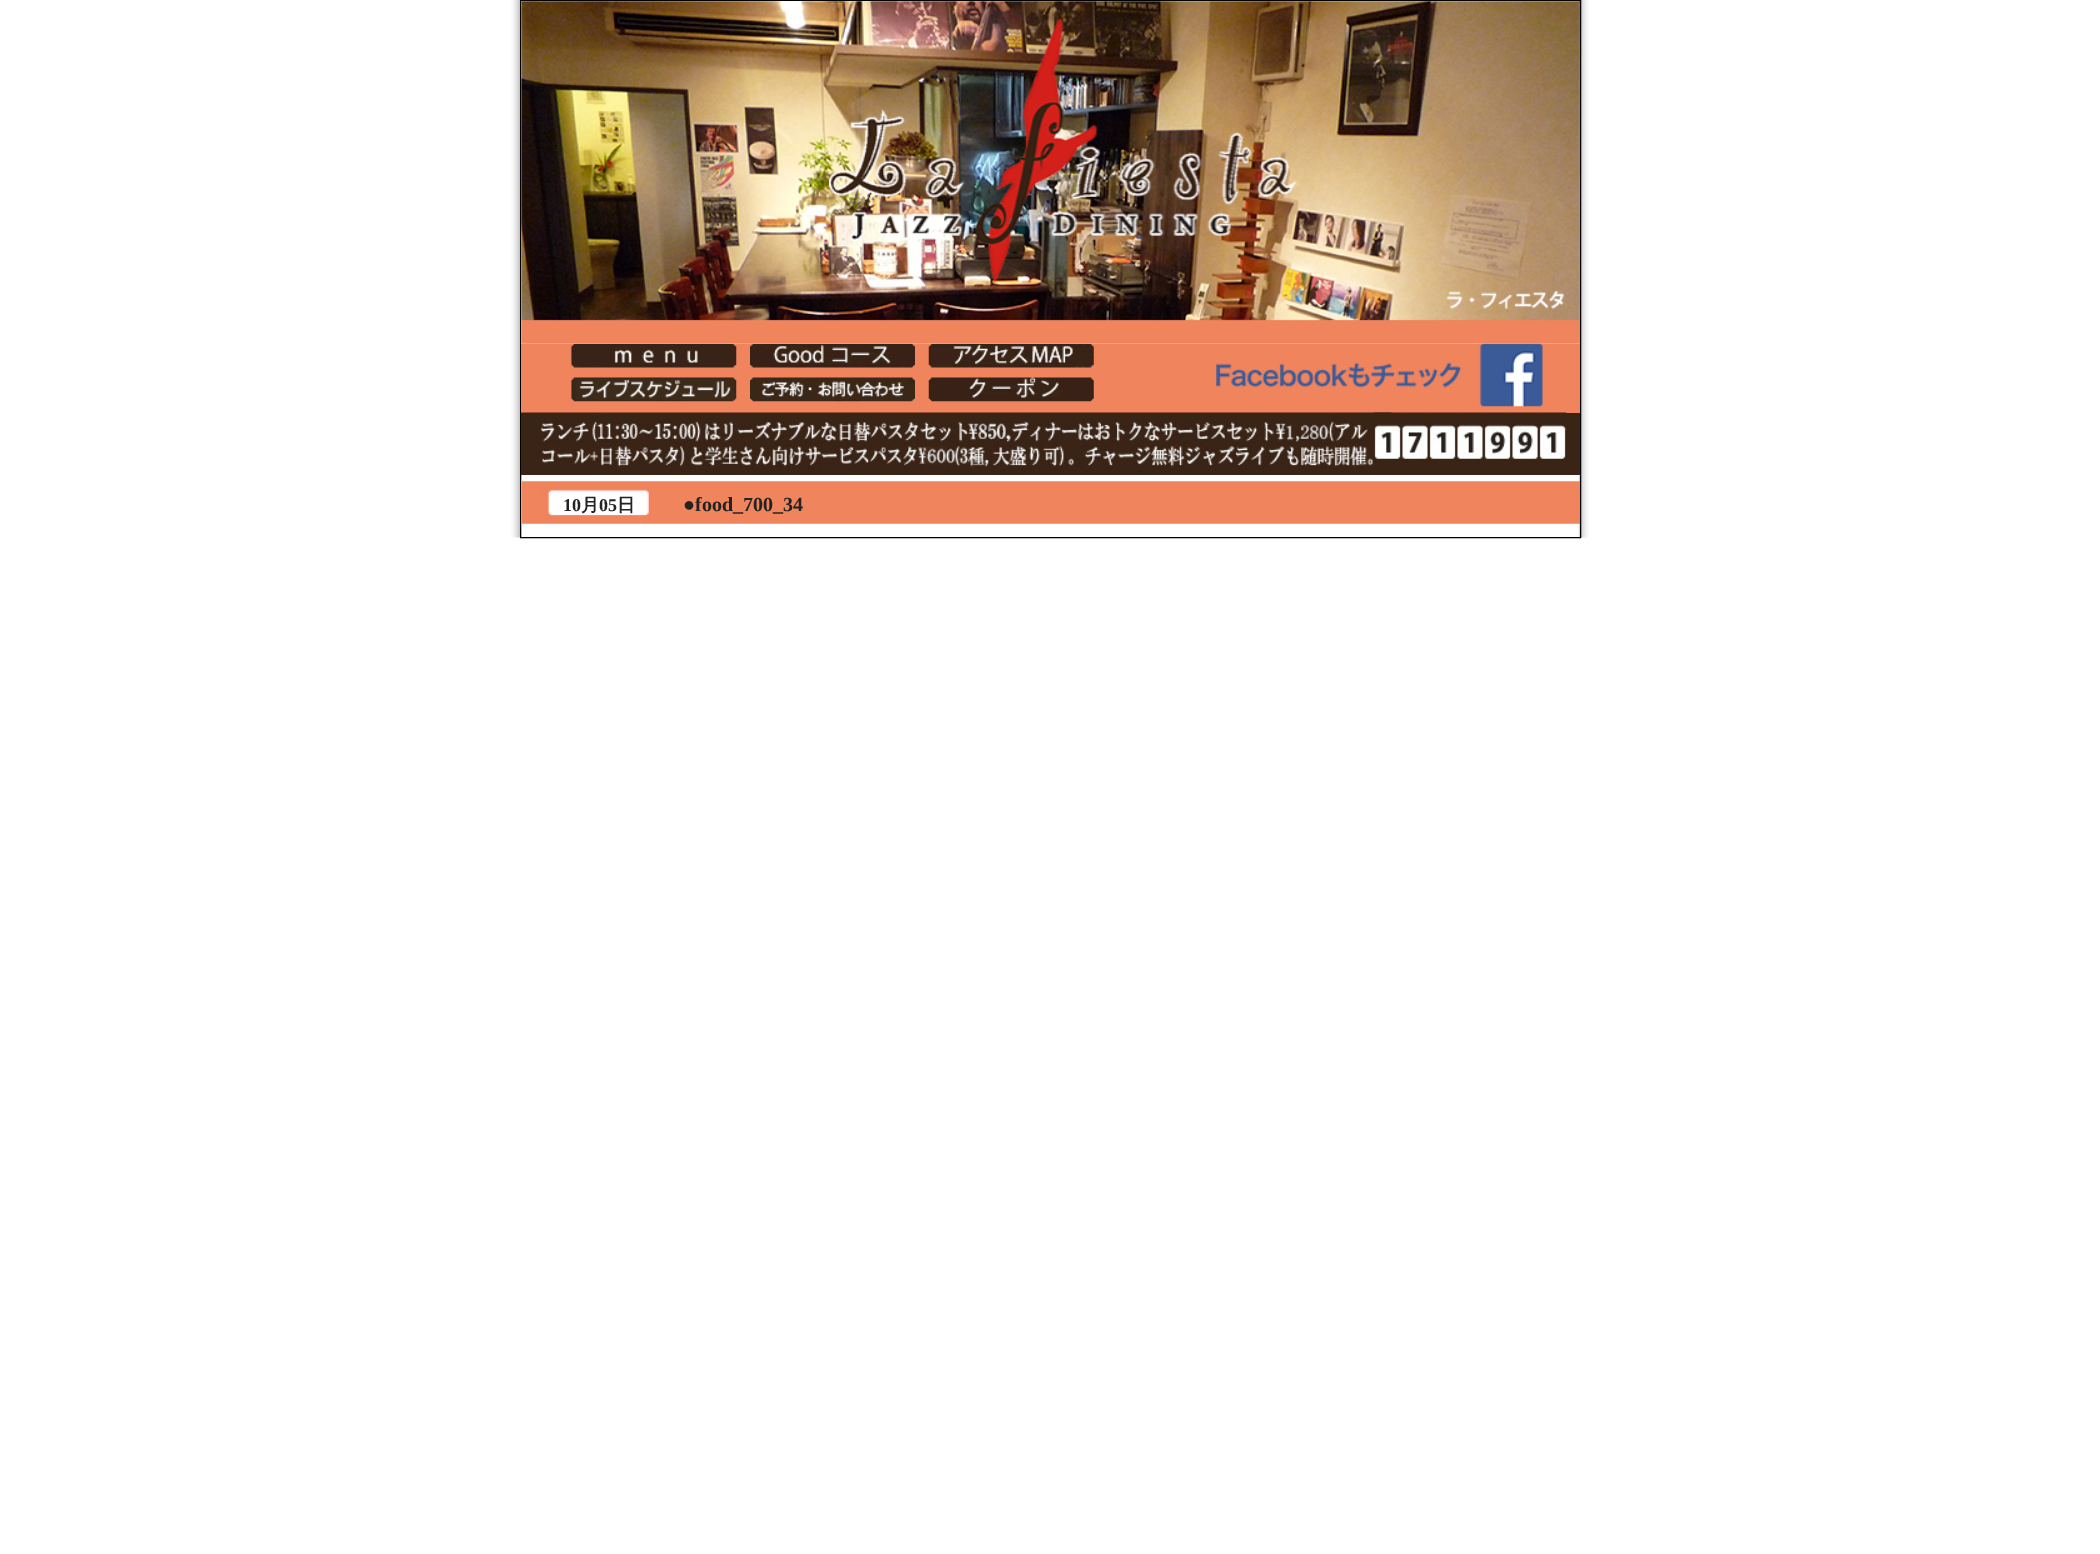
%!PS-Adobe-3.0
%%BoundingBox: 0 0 2100 1554
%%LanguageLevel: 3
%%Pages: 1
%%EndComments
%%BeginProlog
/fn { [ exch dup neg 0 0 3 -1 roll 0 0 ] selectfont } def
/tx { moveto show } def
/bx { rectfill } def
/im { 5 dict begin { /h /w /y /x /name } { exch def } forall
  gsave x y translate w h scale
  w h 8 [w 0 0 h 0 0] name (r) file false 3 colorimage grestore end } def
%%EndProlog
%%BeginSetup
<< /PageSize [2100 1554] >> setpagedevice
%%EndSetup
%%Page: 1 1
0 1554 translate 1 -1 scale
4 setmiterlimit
1 setgray
0 0 2100 1554 bx
(image0.raw) 511 0 1078 538 im
0 setgray
520.5 0.5 1060 537 rectstroke
0.941 0.518 0.365 setrgbcolor
521 344 1059 69 bx
(image3.raw) 571 343 166 25 im
(image4.raw) 750 343 165 25 im
(image5.raw) 928 343 166 25 im
(image9.raw) 1216 343 327 64 im
(image1.raw) 521 1 1059 343 im
(image2.raw) 829 19 468 265 im
(image6.raw) 571 377 166 25 im
(image7.raw) 750 377 165 25 im
(image8.raw) 928 377 166 25 im
0.227 0.141 0.086 setrgbcolor
521 413 1059 62 bx
(image10.raw) 521 412 871 60 im
(image11.raw) 1373 412 29 50 im
(image12.raw) 1401 412 28 51 im
(image13.raw) 1428 412 29 50 im
(image14.raw) 1456 412 28 50 im
(image15.raw) 1483 412 29 50 im
(image16.raw) 1511 412 28 50 im
(image17.raw) 1538 412 29 50 im
(image18.raw) 521 481 1059 43 im
/LiberationSerif-Bold 18 fn
0.137 setgray
(10) 563 511 tx
/WenQuanYiZenHei-Bold 18 fn
(月) 581 511 tx
/LiberationSerif-Bold 18 fn
(05) 599 511 tx
/WenQuanYiZenHei-Bold 18 fn
(日) 617 511 tx
/LiberationSerif-Bold 20 fn
(●food_700_34) 683 511 tx
showpage
%%EOF
